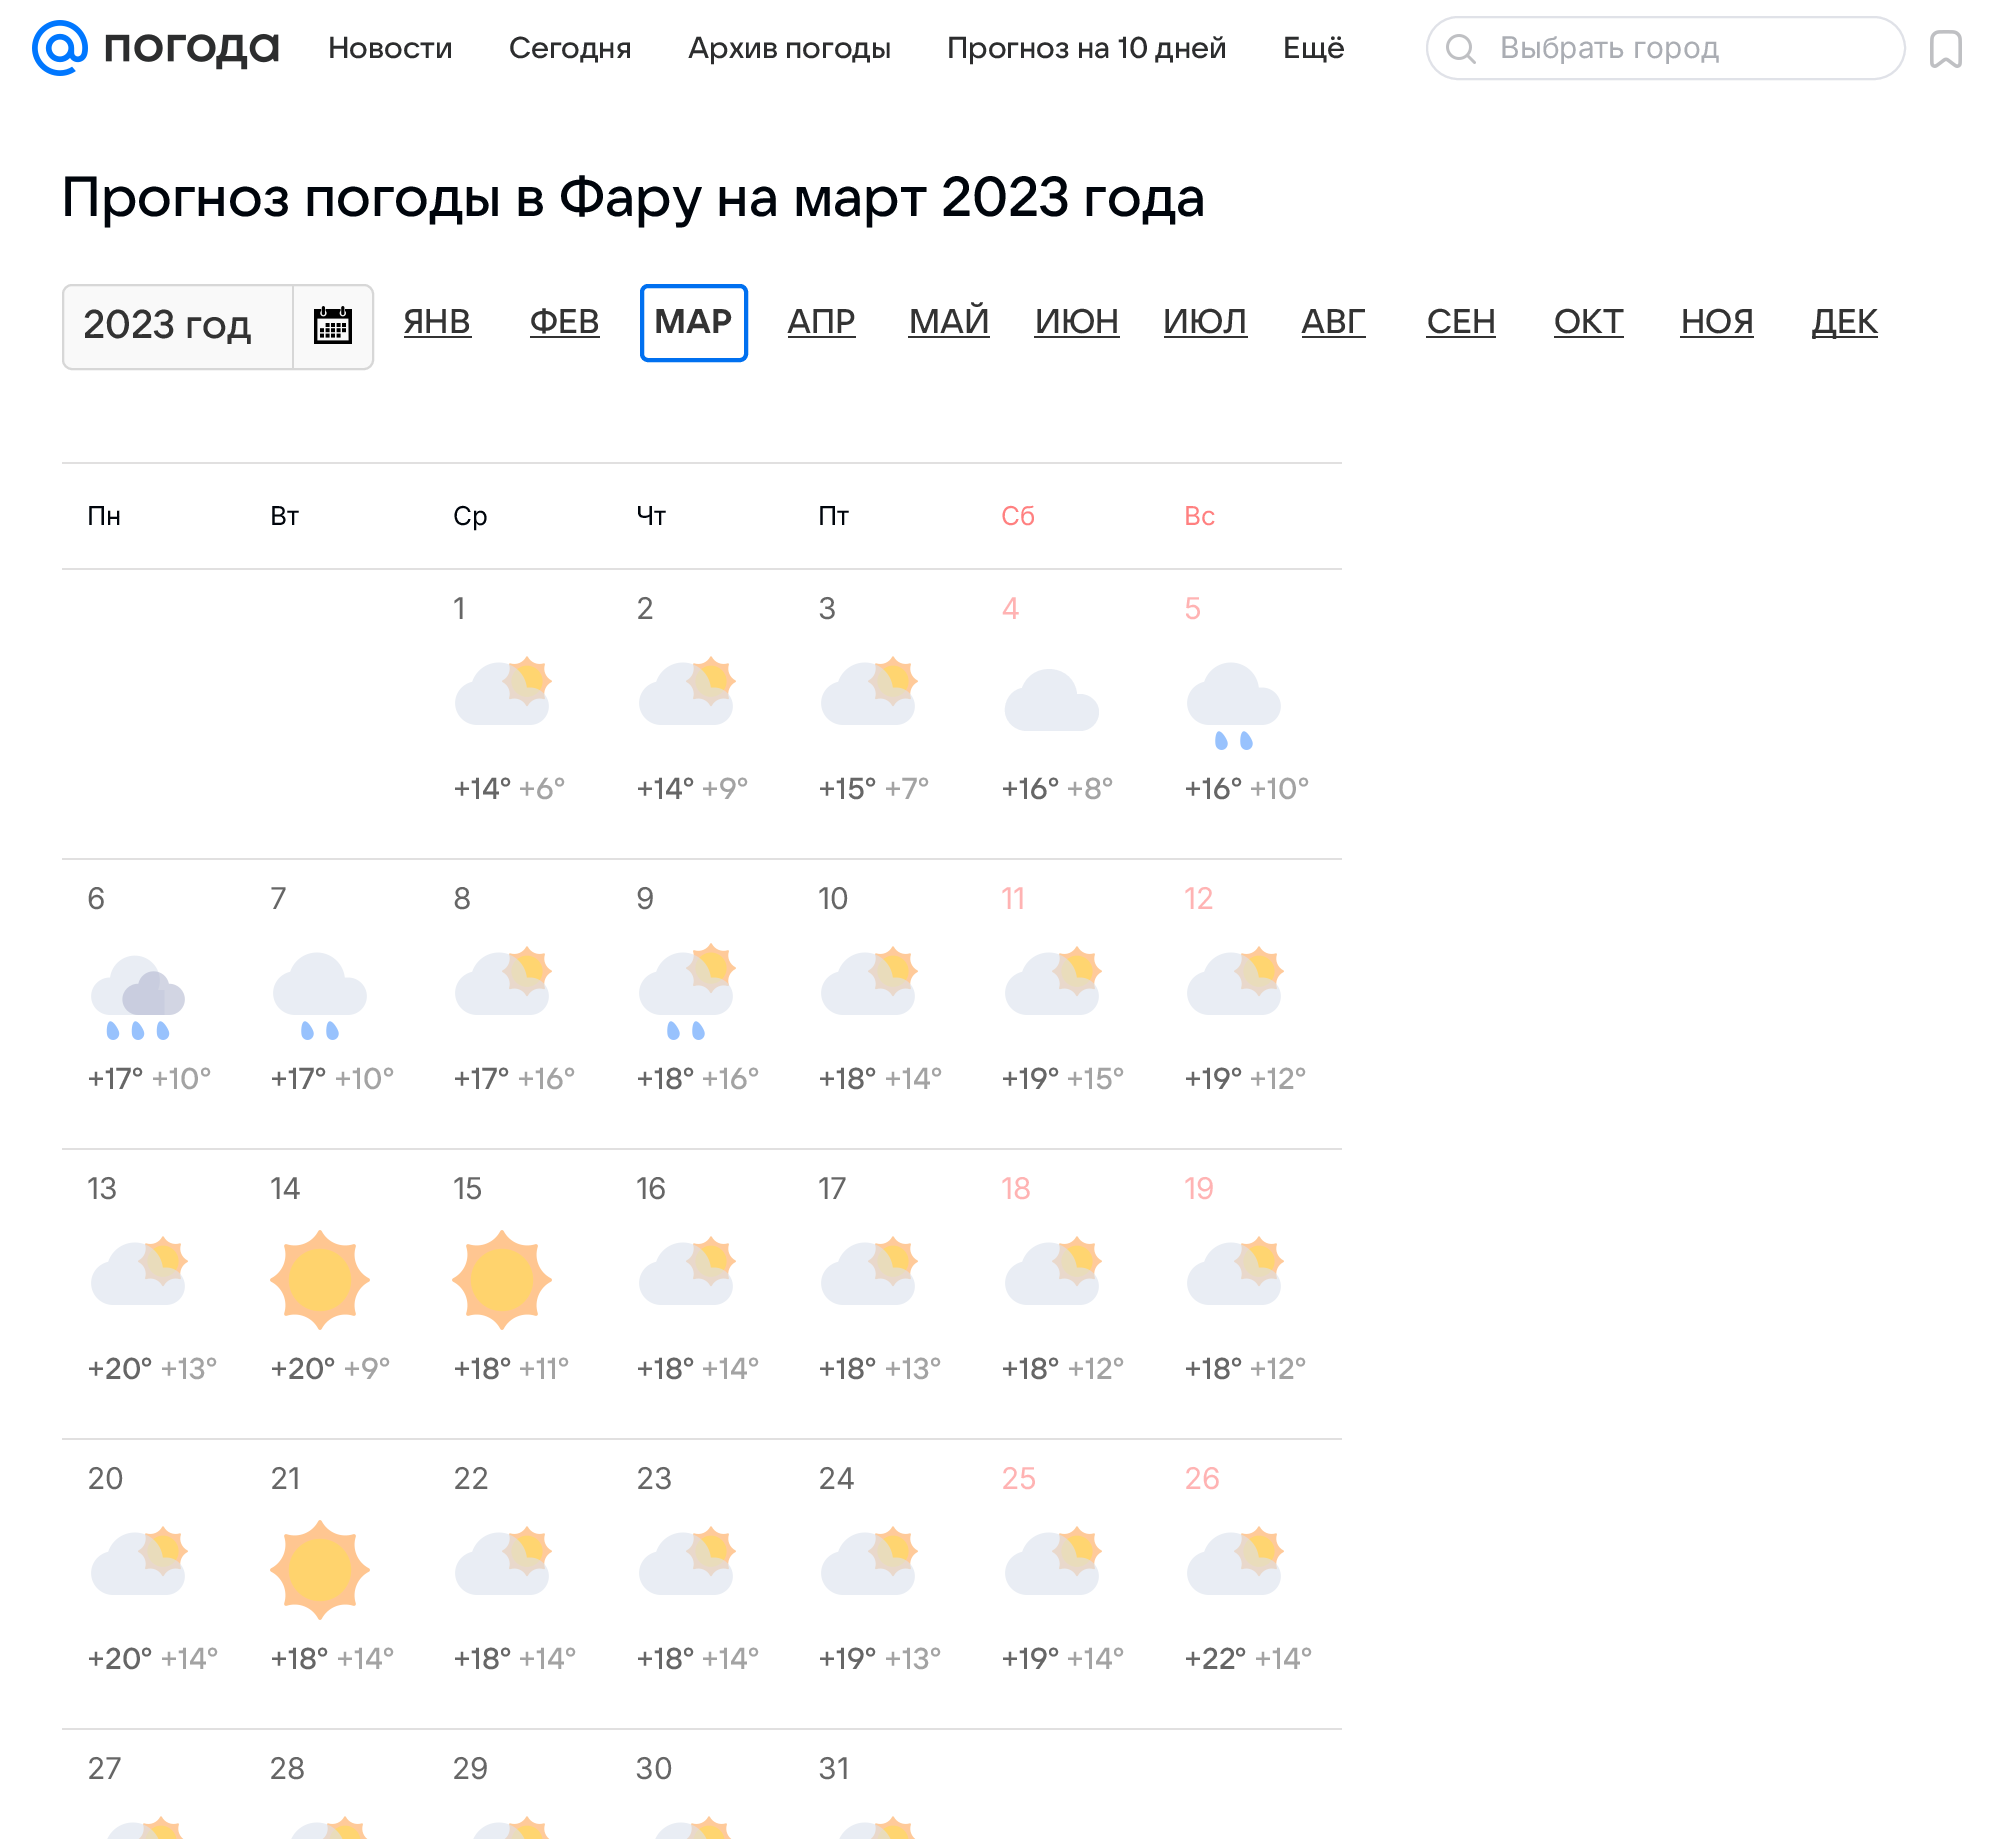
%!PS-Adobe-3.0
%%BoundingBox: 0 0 2002 1839
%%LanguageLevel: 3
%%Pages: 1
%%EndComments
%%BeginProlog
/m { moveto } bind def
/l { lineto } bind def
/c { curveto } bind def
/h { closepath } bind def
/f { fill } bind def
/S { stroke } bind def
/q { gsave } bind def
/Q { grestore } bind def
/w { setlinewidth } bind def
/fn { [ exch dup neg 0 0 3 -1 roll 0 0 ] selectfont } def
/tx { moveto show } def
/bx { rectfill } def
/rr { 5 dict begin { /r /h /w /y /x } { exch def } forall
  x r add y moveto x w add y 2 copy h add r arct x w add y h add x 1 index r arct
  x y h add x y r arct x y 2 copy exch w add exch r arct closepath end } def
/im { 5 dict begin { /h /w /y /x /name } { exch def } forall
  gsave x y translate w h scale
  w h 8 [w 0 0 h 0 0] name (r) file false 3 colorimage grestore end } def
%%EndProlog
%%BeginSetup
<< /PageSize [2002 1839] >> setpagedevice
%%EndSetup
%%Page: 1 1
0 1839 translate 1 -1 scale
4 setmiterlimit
1 setgray
0 0 2002 1839 bx
(image0.raw) 32 20 56 56 im
(image1.raw) 105 33 174 37 im
/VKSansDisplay-Medium 30 fn
0.173 0.176 0.18 setrgbcolor
(Новости) 328 58 tx
(Сегодня) 509 58 tx
(Архив погоды) 688 58 tx
(Прогноз на 10 дней) 947 58 tx
(Ещё) 1283 58 tx
0.878 0.886 0.91 setrgbcolor
2 w
1427 17 478 62 31 rr S
(image2.raw) 1446 34 30 30 im
/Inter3-Regular 30 fn
0.667 0.678 0.702 setrgbcolor
(Выбрать город) 1500 58 tx
(image3.raw) 1930 30 32 38 im
/VKSansDisplay-Medium 56 fn
0 0.02 0.047 setrgbcolor
(Прогноз погоды в Фару на март 2023 года) 61 216 tx
0.976 setgray
63 285 310 84 9 rr q f Q
0.843 setgray
S
/VKSansDisplay-Medium 40 fn
0.2 setgray
(2023 год) 83 338 tx
0.843 setgray
292 286 2 82 bx
(image4.raw) 314 306 38 38 im
/VKSansDisplay-Medium 34 fn
0.2 setgray
(ЯНВ) 403 333 tx
404 336 68 2 bx
(ФЕВ) 530 333 tx
530 336 70 2 bx
0 0.439 0.941 setrgbcolor
4 w
642 286 104 74 6 rr S
/VKSansDisplay-Bold 34 fn
0.2 setgray
(МАР) 654 333 tx
/VKSansDisplay-Medium 34 fn
(АПР) 787 333 tx
788 336 68 2 bx
(МАЙ) 909 333 tx
908 336 82 2 bx
(ИЮН) 1035 333 tx
1034 336 86 2 bx
(ИЮЛ) 1163 333 tx
1164 336 84 2 bx
(АВГ) 1301 333 tx
1302 336 64 2 bx
(СЕН) 1427 333 tx
1426 336 70 2 bx
(ОКТ) 1554 333 tx
1554 336 70 2 bx
(НОЯ) 1681 333 tx
1680 336 74 2 bx
1812 336 66 2 bx
(ДЕК) 1812 333 tx
0.882 0.878 0.878 setrgbcolor
62 462 1280 2 bx
62 568 1280 2 bx
/Inter-Regular 26 fn
0 0.02 0.047 setrgbcolor
(Пн) 87 525 tx
(Вт) 270 525 tx
(Ср) 453 525 tx
(Чт) 636 525 tx
(Пт) 818 525 tx
1 0.502 0.502 setrgbcolor
(Сб) 1001 525 tx
(Вс) 1184 525 tx
0.882 0.878 0.878 setrgbcolor
62 858 1280 2 bx
/Inter-Regular 30 fn
0.4 setgray
(1) 453 619 tx
(image5.raw) 455 656 97 69 im
/VKSansDisplay-Medium 30 fn
(+14°) 453 799 tx
0.639 setgray
(+6°) 518 799 tx
/Inter-Regular 30 fn
0.4 setgray
(2) 636 619 tx
(image5.raw) 639 656 97 69 im
/VKSansDisplay-Medium 30 fn
(+14°) 636 799 tx
0.639 setgray
(+9°) 701 799 tx
/Inter-Regular 30 fn
0.4 setgray
(3) 818 619 tx
(image5.raw) 821 656 97 69 im
/VKSansDisplay-Medium 30 fn
(+15°) 818 799 tx
0.639 setgray
(+7°) 884 799 tx
/Inter-Regular 30 fn
1 0.702 0.702 setrgbcolor
(4) 1001 619 tx
0.914 0.929 0.957 setrgbcolor
1077 694 m 1074 664 1032 660 1022 688 c 1011 690 1004 701 1005 712 c 1006 723 1016 731 1027 731 c 1080 731 l 1090 731 1099 723 1099 712 c 1099 702 1090 694 1080 694 c h f
/VKSansDisplay-Medium 30 fn
0.4 setgray
(+16°) 1001 799 tx
0.639 setgray
(+8°) 1066 799 tx
/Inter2-Regular 30 fn
1 0.702 0.702 setrgbcolor
(5) 1184 619 tx
(image6.raw) 1187 662 94 88 im
/VKSansDisplay-Medium 30 fn
0.4 setgray
(+16°) 1184 799 tx
0.639 setgray
(+10°) 1249 799 tx
0.882 0.878 0.878 setrgbcolor
62 1148 1280 2 bx
/Inter-Regular 30 fn
0.4 setgray
(6) 87 909 tx
(image7.raw) 91 955 94 85 im
/VKSansDisplay-Medium 30 fn
(+17°) 87 1089 tx
0.639 setgray
(+10°) 151 1089 tx
/Inter-Regular 30 fn
0.4 setgray
(7) 270 909 tx
(image6.raw) 273 952 94 88 im
/VKSansDisplay-Medium 30 fn
(+17°) 270 1089 tx
0.639 setgray
(+10°) 334 1089 tx
/Inter-Regular 30 fn
0.4 setgray
(8) 453 909 tx
(image5.raw) 455 946 97 69 im
/VKSansDisplay-Medium 30 fn
(+17°) 453 1089 tx
0.639 setgray
(+16°) 517 1089 tx
/Inter-Regular 30 fn
0.4 setgray
(9) 636 909 tx
(image8.raw) 639 943 97 97 im
/VKSansDisplay-Medium 30 fn
(+18°) 636 1089 tx
0.639 setgray
(+16°) 701 1089 tx
/Inter-Regular 30 fn
0.4 setgray
(10) 818 909 tx
(image5.raw) 821 946 97 69 im
/VKSansDisplay-Medium 30 fn
(+18°) 818 1089 tx
0.639 setgray
(+14°) 884 1089 tx
/Inter-Regular 30 fn
1 0.702 0.702 setrgbcolor
(11) 1001 909 tx
(image5.raw) 1005 946 97 69 im
/VKSansDisplay-Medium 30 fn
0.4 setgray
(+19°) 1001 1089 tx
0.639 setgray
(+15°) 1066 1089 tx
/Inter-Regular 30 fn
1 0.702 0.702 setrgbcolor
(12) 1184 909 tx
(image5.raw) 1187 946 97 69 im
/VKSansDisplay-Medium 30 fn
0.4 setgray
(+19°) 1184 1089 tx
0.639 setgray
(+12°) 1249 1089 tx
0.882 0.878 0.878 setrgbcolor
62 1438 1280 2 bx
/Inter-Regular 30 fn
0.4 setgray
(13) 87 1199 tx
(image5.raw) 91 1236 97 69 im
/VKSansDisplay-Medium 30 fn
(+20°) 87 1379 tx
0.639 setgray
(+13°) 160 1379 tx
/Inter-Regular 30 fn
0.4 setgray
(14) 270 1199 tx
(image9.raw) 270 1230 100 100 im
/VKSansDisplay-Medium 30 fn
(+20°) 270 1379 tx
0.639 setgray
(+9°) 343 1379 tx
/Inter2-Regular 30 fn
0.4 setgray
(15) 453 1199 tx
(image9.raw) 452 1230 100 100 im
/VKSansDisplay-Medium 30 fn
(+18°) 453 1379 tx
0.639 setgray
(+11°) 518 1379 tx
/Inter-Regular 30 fn
0.4 setgray
(16) 636 1199 tx
(image5.raw) 639 1236 97 69 im
/VKSansDisplay-Medium 30 fn
(+18°) 636 1379 tx
0.639 setgray
(+14°) 701 1379 tx
/Inter-Regular 30 fn
0.4 setgray
(17) 818 1199 tx
(image5.raw) 821 1236 97 69 im
/VKSansDisplay-Medium 30 fn
(+18°) 818 1379 tx
0.639 setgray
(+13°) 884 1379 tx
/Inter-Regular 30 fn
1 0.702 0.702 setrgbcolor
(18) 1001 1199 tx
(image5.raw) 1005 1236 97 69 im
/VKSansDisplay-Medium 30 fn
0.4 setgray
(+18°) 1001 1379 tx
0.639 setgray
(+12°) 1067 1379 tx
/Inter-Regular 30 fn
1 0.702 0.702 setrgbcolor
(19) 1184 1199 tx
(image5.raw) 1187 1236 97 69 im
/VKSansDisplay-Medium 30 fn
0.4 setgray
(+18°) 1184 1379 tx
0.639 setgray
(+12°) 1249 1379 tx
0.882 0.878 0.878 setrgbcolor
62 1728 1280 2 bx
/Inter-Regular 30 fn
0.4 setgray
(20) 87 1489 tx
(image5.raw) 91 1526 97 69 im
/VKSansDisplay-Medium 30 fn
(+20°) 87 1669 tx
0.639 setgray
(+14°) 160 1669 tx
/Inter-Regular 30 fn
0.4 setgray
(21) 270 1489 tx
(image9.raw) 270 1520 100 100 im
/VKSansDisplay-Medium 30 fn
(+18°) 270 1669 tx
0.639 setgray
(+14°) 336 1669 tx
/Inter-Regular 30 fn
0.4 setgray
(22) 453 1489 tx
(image5.raw) 455 1526 97 69 im
/VKSansDisplay-Medium 30 fn
(+18°) 453 1669 tx
0.639 setgray
(+14°) 518 1669 tx
/Inter-Regular 30 fn
0.4 setgray
(23) 636 1489 tx
(image5.raw) 639 1526 97 69 im
/VKSansDisplay-Medium 30 fn
(+18°) 636 1669 tx
0.639 setgray
(+14°) 701 1669 tx
/Inter-Regular 30 fn
0.4 setgray
(24) 818 1489 tx
(image5.raw) 821 1526 97 69 im
/VKSansDisplay-Medium 30 fn
(+19°) 818 1669 tx
0.639 setgray
(+13°) 884 1669 tx
/Inter2-Regular 30 fn
1 0.702 0.702 setrgbcolor
(25) 1001 1489 tx
(image5.raw) 1005 1526 97 69 im
/VKSansDisplay-Medium 30 fn
0.4 setgray
(+19°) 1001 1669 tx
0.639 setgray
(+14°) 1066 1669 tx
/Inter-Regular 30 fn
1 0.702 0.702 setrgbcolor
(26) 1184 1489 tx
(image5.raw) 1187 1526 97 69 im
/VKSansDisplay-Medium 30 fn
0.4 setgray
(+22°) 1184 1669 tx
0.639 setgray
(+14°) 1254 1669 tx
/Inter-Regular 30 fn
0.4 setgray
(27) 87 1779 tx
(image10.raw) 107 1816 77 23 im
(28) 269 1779 tx
(image10.raw) 291 1816 77 23 im
(29) 452 1779 tx
(image10.raw) 473 1816 77 23 im
(30) 635 1779 tx
(image10.raw) 655 1816 77 23 im
(31) 818 1779 tx
(image10.raw) 839 1816 77 23 im
showpage
%%EOF
